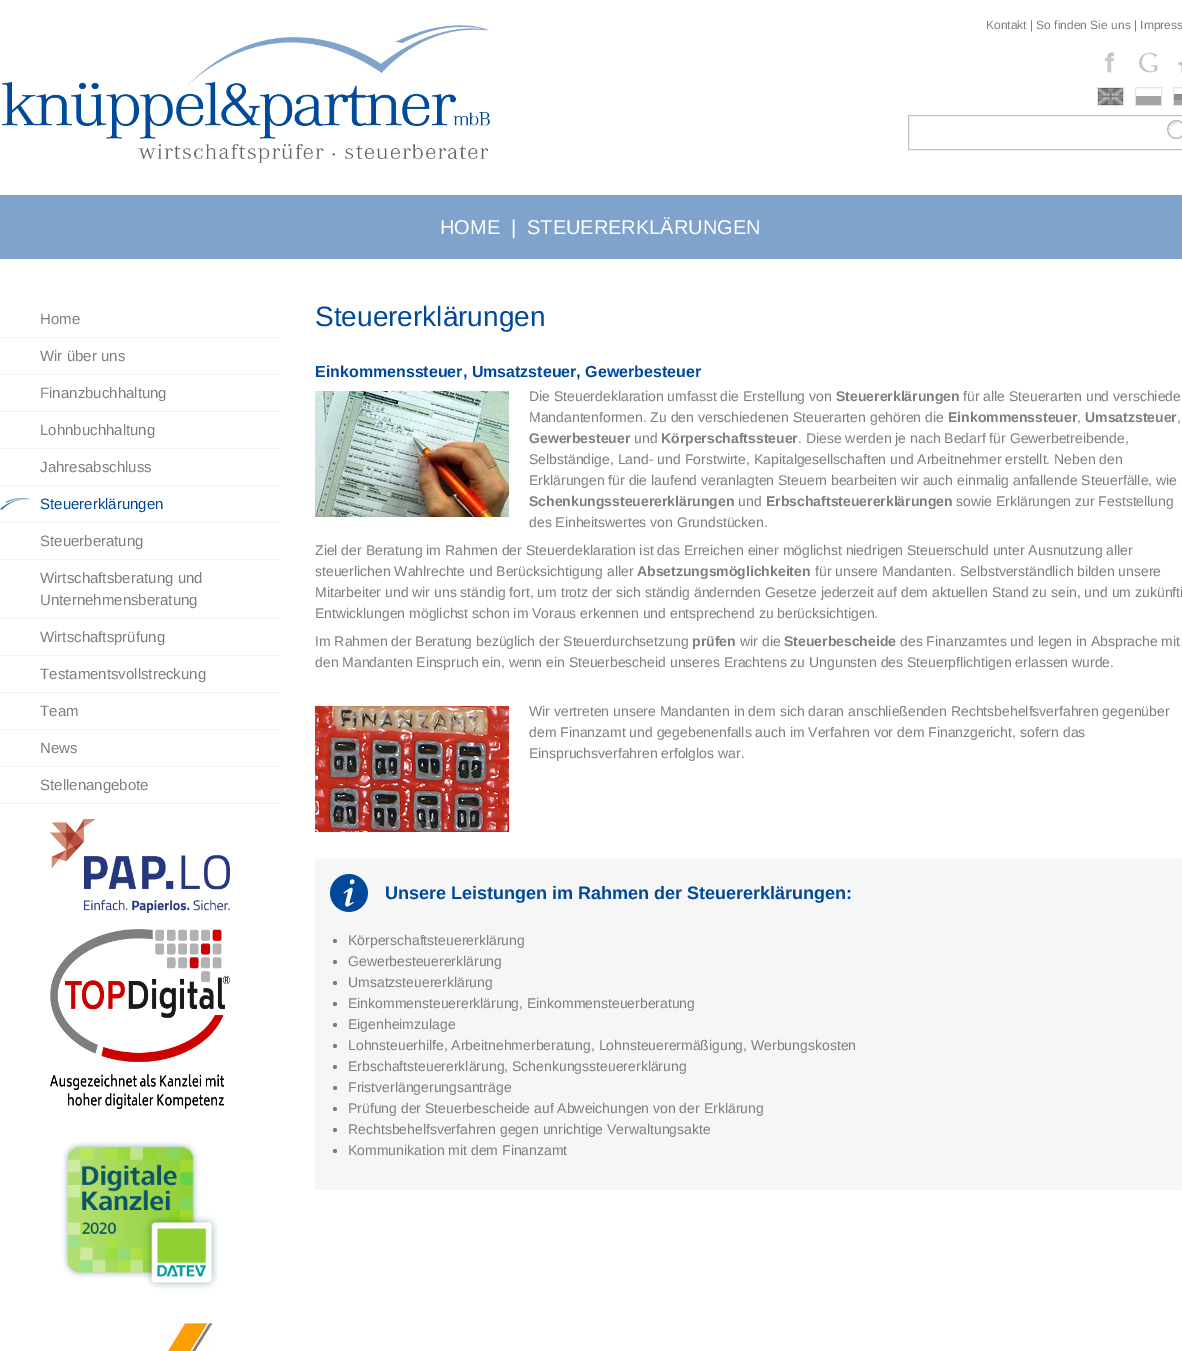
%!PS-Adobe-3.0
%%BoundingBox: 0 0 1182 1351
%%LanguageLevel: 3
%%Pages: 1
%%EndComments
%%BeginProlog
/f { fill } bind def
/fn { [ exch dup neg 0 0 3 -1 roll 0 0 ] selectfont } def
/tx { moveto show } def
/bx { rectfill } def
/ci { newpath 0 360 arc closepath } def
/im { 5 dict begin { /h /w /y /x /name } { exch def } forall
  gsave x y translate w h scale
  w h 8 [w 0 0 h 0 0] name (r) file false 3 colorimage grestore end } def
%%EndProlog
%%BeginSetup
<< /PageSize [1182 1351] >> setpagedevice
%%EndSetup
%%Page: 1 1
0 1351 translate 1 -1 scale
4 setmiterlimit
1 setgray
0 0 1182 1351 bx
(image0.raw) 2 25 488 138 im
/LiberationSans-Regular 12 fn
0.494 setgray
(Kontakt | So finden Sie uns | Impress) 986 29 tx
(image1.raw) 1104 52 11 21 im
(image2.raw) 1138 52 20 21 im
(image3.raw) 1177 61 5 12 im
0.898 setgray
1097.5 87.5 26 18 rectstroke
(image4.raw) 1098 88 25 17 im
1135.5 87.5 26 18 rectstroke
0.639 setgray
1136 96 25 9 bx
0.898 setgray
1173.5 87.5 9 18 rectstroke
(image5.raw) 1174 94 8 11 im
0.761 setgray
908.5 115.5 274 34 rectstroke
(image6.raw) 1167 120 15 20 im
0.498 0.639 0.8 setrgbcolor
0 195 1182 64 bx
/LiberationSans-Regular 20 fn
1 setgray
(HOME) 440 234 tx
(|) 511 234 tx
(STEUERERKLÄRUNGEN) 527 234 tx
0.953 setgray
0 337 280 1 bx
/LiberationSans-Regular 15 fn
0.494 setgray
(Home) 40 324 tx
0.953 setgray
0 374 280 1 bx
0.494 setgray
(Wir über uns) 40 361 tx
0.953 setgray
0 411 280 1 bx
0.494 setgray
(Finanzbuchhaltung) 40 398 tx
0.953 setgray
0 448 280 1 bx
0.494 setgray
(Lohnbuchhaltung) 40 435 tx
0.953 setgray
0 485 280 1 bx
0.494 setgray
(Jahresabschluss) 40 472 tx
(image7.raw) 0 498 30 12 im
0.953 setgray
0 522 280 1 bx
0 0.282 0.6 setrgbcolor
(Steuererklärungen) 40 509 tx
0.953 setgray
0 559 280 1 bx
0.494 setgray
(Steuerberatung) 40 546 tx
0.953 setgray
0 618 280 1 bx
0.494 setgray
(Wirtschaftsberatung und) 40 583 tx
(Unternehmensberatung) 40 605 tx
0.953 setgray
0 655 280 1 bx
0.494 setgray
(Wirtschaftsprüfung) 40 642 tx
0.953 setgray
0 692 280 1 bx
0.494 setgray
(Testamentsvollstreckung) 40 679 tx
0.953 setgray
0 729 280 1 bx
0.494 setgray
(Team) 40 716 tx
0.953 setgray
0 766 280 1 bx
0.494 setgray
(News) 40 753 tx
0.953 setgray
0 803 280 1 bx
0.494 setgray
(Stellenangebote) 40 790 tx
(image8.raw) 50 819 180 94 im
(image9.raw) 50 929 180 180 im
(image10.raw) 62 1142 156 147 im
(image11.raw) 160 1323 56 28 im
/LiberationSans-Regular 28 fn
0 0.282 0.6 setrgbcolor
(Steuererklärungen) 315 326 tx
/LiberationSans-Bold 16 fn
(Einkommenssteuer, Umsatzsteuer, Gewerbesteuer) 315 377 tx
(image12.raw) 315 391 194 126 im
/LiberationSans-Regular 14 fn
0.494 setgray
(Die Steuerdeklaration umfasst die Erstellung von) 529 401 tx
/LiberationSans-Bold 14 fn
(Steuererklärungen) 836 401 tx
/LiberationSans-Regular 14 fn
(für alle Steuerarten und verschiede) 963 401 tx
(Mandantenformen. Zu den verschiedenen Steuerarten gehören die) 529 422 tx
/LiberationSans-Bold 14 fn
(Einkommenssteuer) 948 422 tx
/LiberationSans-Regular 14 fn
(,) 1077 422 tx
/LiberationSans-Bold 14 fn
(Umsatzsteuer) 1085 422 tx
/LiberationSans-Regular 14 fn
(,) 1177 422 tx
/LiberationSans-Bold 14 fn
(Gewerbesteuer) 529 443 tx
/LiberationSans-Regular 14 fn
(und) 634 443 tx
/LiberationSans-Bold 14 fn
(Körperschaftssteuer) 661 443 tx
/LiberationSans-Regular 14 fn
(. Diese werden je nach Bedarf für Gewerbetreibende,) 798 443 tx
(Selbständige, Land- und Forstwirte, Kapitalgesellschaften und Arbeitnehmer erstellt. Neben den) 529 464 tx
(Erklärungen für die laufend veranlagten Steuern bearbeiten wir auch einmalig anfallende Steuerfälle, wie) 529 485 tx
/LiberationSans-Bold 14 fn
(Schenkungssteuererklärungen) 529 506 tx
/LiberationSans-Regular 14 fn
(und) 738 506 tx
/LiberationSans-Bold 14 fn
(Erbschaftsteuererklärungen) 766 506 tx
/LiberationSans-Regular 14 fn
(sowie Erklärungen zur Feststellung) 956 506 tx
(des Einheitswertes von Grundstücken.) 529 527 tx
(Ziel der Beratung im Rahmen der Steuerdeklaration ist das Erreichen einer möglichst niedrigen Steuerschuld unter Ausnutzung aller) 315 555 tx
(steuerlichen Wahlrechte und Berücksichtigung aller) 315 576 tx
/LiberationSans-Bold 14 fn
(Absetzungsmöglichkeiten) 637 576 tx
/LiberationSans-Regular 14 fn
(für unsere Mandanten. Selbstverständlich bilden unsere) 815 576 tx
(Mitarbeiter und wir uns ständig fort, um trotz der sich ständig ändernden Gesetze jederzeit auf dem aktuellen Stand zu sein, und um zukünfti) 315 597 tx
(Entwicklungen möglichst schon im Voraus erkennen und entsprechend zu berücksichtigen.) 315 618 tx
(Im Rahmen der Beratung bezüglich der Steuerdurchsetzung) 315 646 tx
/LiberationSans-Bold 14 fn
(prüfen) 692 646 tx
/LiberationSans-Regular 14 fn
(wir die) 740 646 tx
/LiberationSans-Bold 14 fn
(Steuerbescheide) 784 646 tx
/LiberationSans-Regular 14 fn
(des Finanzamtes und legen in Absprache mit) 900 646 tx
(den Mandanten Einspruch ein, wenn ein Steuerbescheid unseres Erachtens zu Ungunsten des Steuerpflichtigen erlassen wurde.) 315 667 tx
(image13.raw) 315 706 194 126 im
(Wir vertreten unsere Mandanten in dem sich daran anschließenden Rechtsbehelfsverfahren gegenüber) 529 716 tx
(dem Finanzamt und gegebenenfalls auch im Verfahren vor dem Finanzgericht, sofern das) 529 737 tx
(Einspruchsverfahren erfolglos war.) 529 758 tx
0.965 setgray
315 859 867 331 bx
(image14.raw) 330 874 38 38 im
/LiberationSans-Bold 18 fn
0 0.282 0.6 setrgbcolor
(Unsere Leistungen im Rahmen der Steuererklärungen:) 385 899 tx
0.494 setgray
335 941 2 ci f
/LiberationSans-Regular 14 fn
(Körperschaftsteuererklärung) 348 945 tx
335 962 2 ci f
(Gewerbesteuererklärung) 348 966 tx
335 983 2 ci f
(Umsatzsteuererklärung) 348 987 tx
335 1004 2 ci f
(Einkommensteuererklärung, Einkommensteuerberatung) 348 1008 tx
335 1025 2 ci f
(Eigenheimzulage) 348 1029 tx
335 1046 2 ci f
(Lohnsteuerhilfe, Arbeitnehmerberatung, Lohnsteuerermäßigung, Werbungskosten) 348 1050 tx
335 1067 2 ci f
(Erbschaftsteuererklärung, Schenkungssteuererklärung) 348 1071 tx
335 1088 2 ci f
(Fristverlängerungsanträge) 348 1092 tx
335 1109 2 ci f
(Prüfung der Steuerbescheide auf Abweichungen von der Erklärung) 348 1113 tx
335 1130 2 ci f
(Rechtsbehelfsverfahren gegen unrichtige Verwaltungsakte) 348 1134 tx
335 1151 2 ci f
(Kommunikation mit dem Finanzamt) 348 1155 tx
showpage
%%EOF
